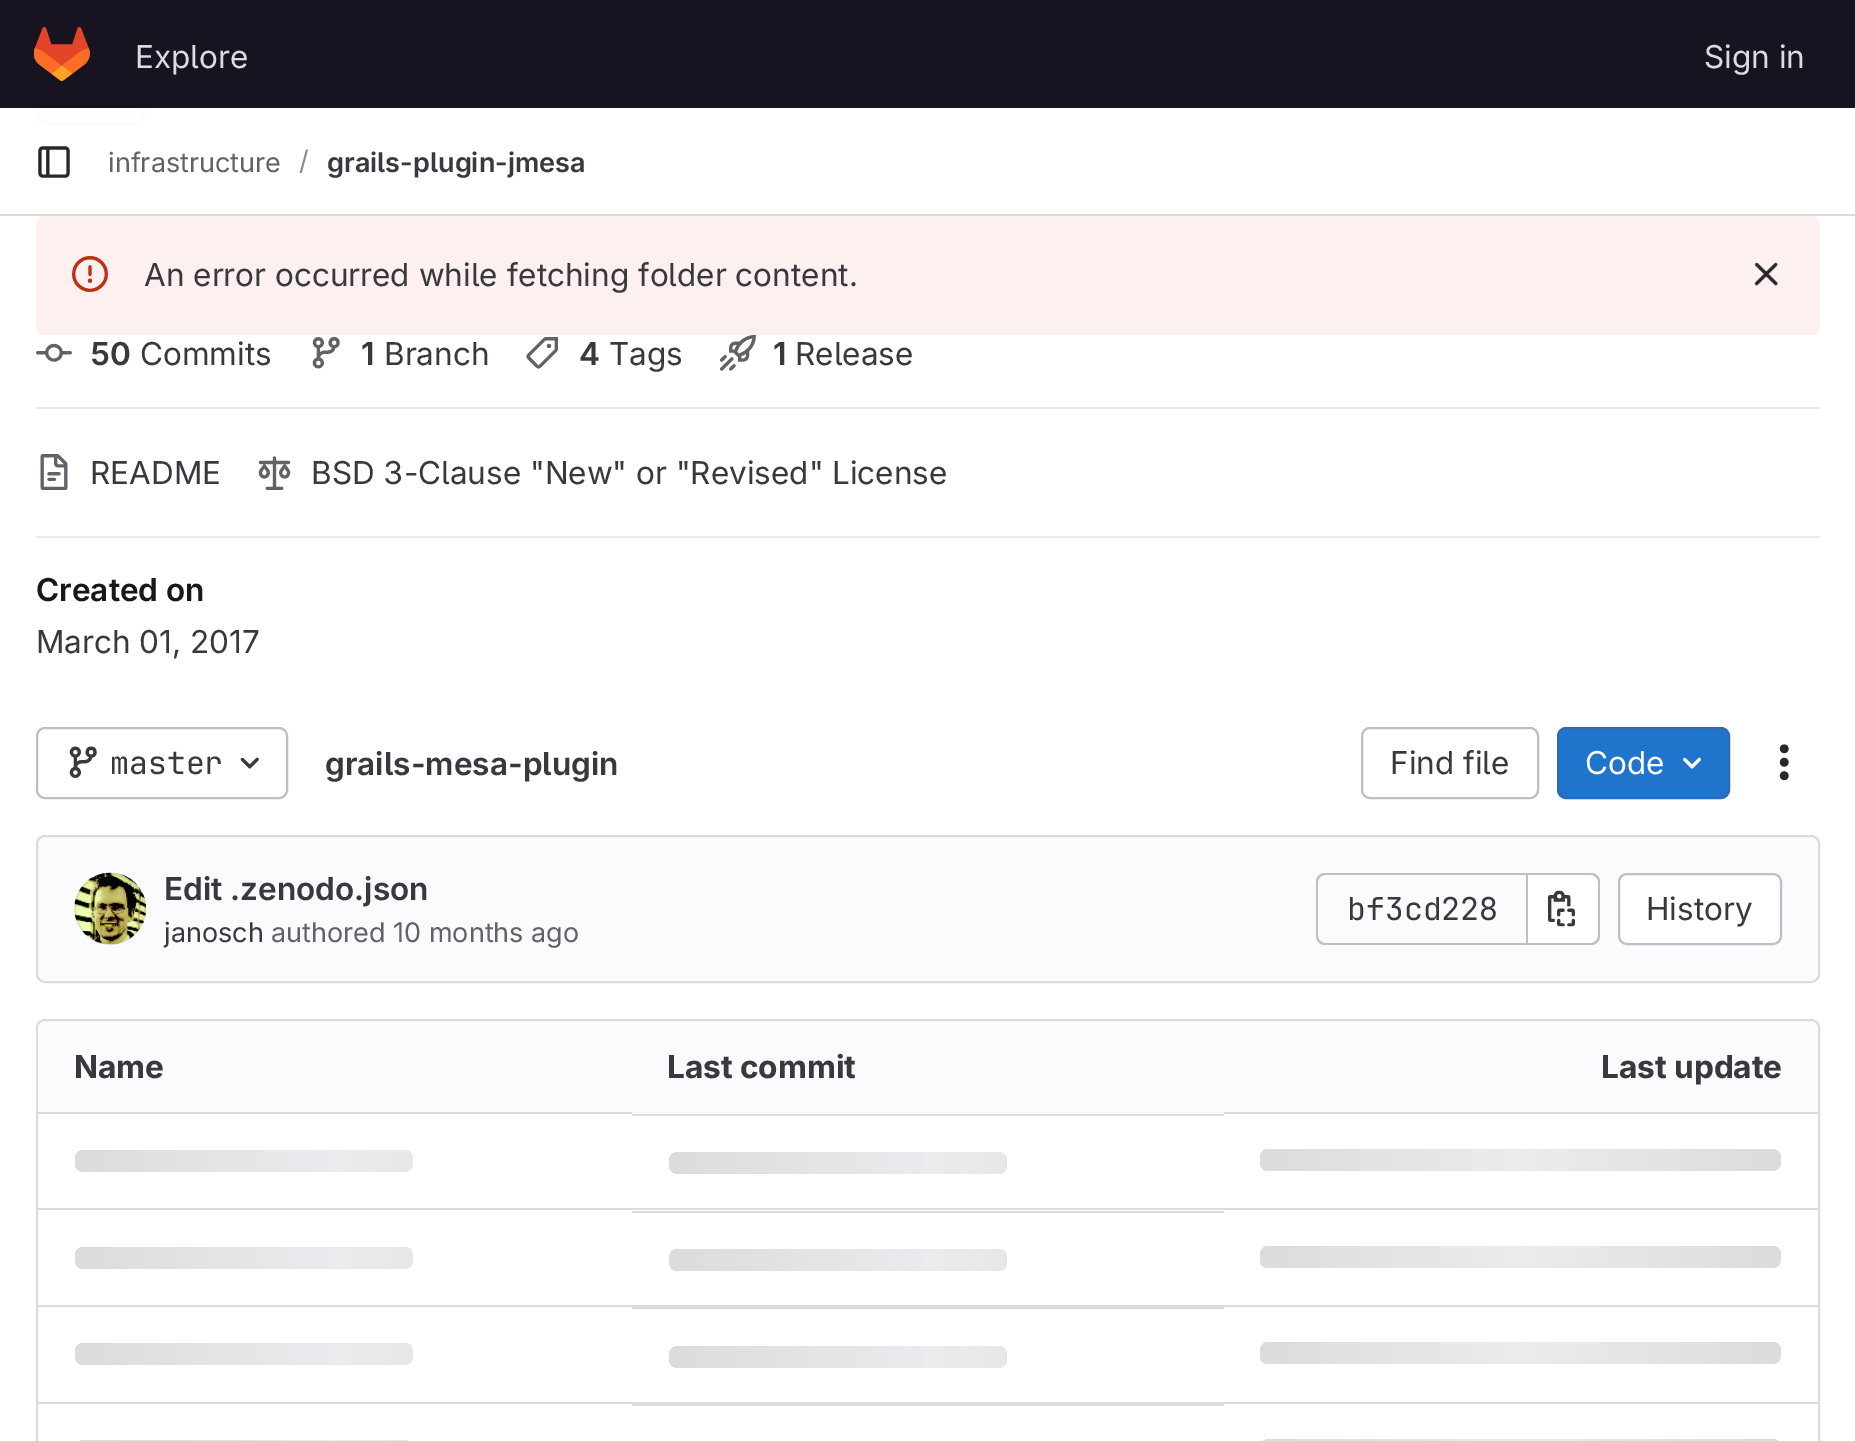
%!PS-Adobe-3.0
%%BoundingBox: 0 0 1855 1441
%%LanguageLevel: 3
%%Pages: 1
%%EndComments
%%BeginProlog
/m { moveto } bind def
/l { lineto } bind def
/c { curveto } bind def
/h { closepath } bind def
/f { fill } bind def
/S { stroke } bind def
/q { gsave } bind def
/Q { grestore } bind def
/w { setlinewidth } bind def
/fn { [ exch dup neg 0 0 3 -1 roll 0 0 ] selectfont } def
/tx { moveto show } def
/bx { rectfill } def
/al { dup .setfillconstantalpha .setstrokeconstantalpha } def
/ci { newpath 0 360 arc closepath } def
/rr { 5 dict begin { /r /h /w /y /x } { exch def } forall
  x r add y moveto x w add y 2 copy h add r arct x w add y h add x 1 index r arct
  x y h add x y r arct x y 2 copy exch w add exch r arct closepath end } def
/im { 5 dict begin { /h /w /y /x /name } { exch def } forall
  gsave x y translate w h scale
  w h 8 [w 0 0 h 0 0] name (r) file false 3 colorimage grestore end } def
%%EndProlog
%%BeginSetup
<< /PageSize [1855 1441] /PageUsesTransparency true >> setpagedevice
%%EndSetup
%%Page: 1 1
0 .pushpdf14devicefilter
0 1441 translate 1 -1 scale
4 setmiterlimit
1 setgray
0 0 1855 1441 bx
0.941 0.941 0.945 setrgbcolor
36 16 108 108 9 rr f
0.08 al
0.02 0.02 0.024 setrgbcolor
2 w
37 17 106 106 8 rr S
1 al
0.09 0.075 0.129 setrgbcolor
0 0 1855 108 bx
(image0.raw) 34 27 56 54 im
/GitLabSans-Regular 31.5 fn
0.863 0.863 0.871 setrgbcolor
(Explore) 135 68 tx
(Sign in) 1704 68 tx
0.92 al
1 setgray
36 108 108 16 bx
1 al
0.863 0.863 0.871 setrgbcolor
0 214 1855 2 bx
(image1.raw) 38 146 32 32 im
/GitLabSans-Regular 27 fn
0.384 0.38 0.408 setrgbcolor
(infrastructure) 108 172 tx
0.537 0.533 0.553 setrgbcolor
(/) 299 170 tx
/GitLabSans-SemiBold 27 fn
0.227 0.22 0.247 setrgbcolor
(grails-plugin-jmesa) 327 172 tx
0.988 0.945 0.937 setrgbcolor
36 216 1784 119 9 rr f
(image2.raw) 72 256 36 36 im
/GitLabSans-Regular 31.5 fn
0.227 0.22 0.247 setrgbcolor
(An error occurred while fetching folder content.) 144 286 tx
(image3.raw) 1754 262 25 24 im
0.925 0.925 0.937 setrgbcolor
36 407 1784 2 bx
(image4.raw) 36 343 36 19 im
/GitLabSans-SemiBold 31.5 fn
0.227 0.22 0.247 setrgbcolor
(50) 90 365 tx
/GitLabSans-Regular 31.5 fn
(Commits) 140 365 tx
(image5.raw) 312 337 28 32 im
/GitLabSans-SemiBold 31.5 fn
(1) 361 365 tx
/GitLabSans-Regular 31.5 fn
(Branch) 384 365 tx
(image6.raw) 526 337 32 32 im
/GitLabSans-SemiBold 31.5 fn
(4) 579 365 tx
/GitLabSans-Regular 31.5 fn
(Tags) 609 365 tx
(image7.raw) 720 335 36 36 im
/GitLabSans-SemiBold 31.5 fn
(1) 773 365 tx
/GitLabSans-Regular 31.5 fn
(Release) 795 365 tx
0.925 0.925 0.937 setrgbcolor
36 536 1784 2 bx
(image8.raw) 40 454 28 36 im
0.227 0.22 0.247 setrgbcolor
(README) 90 484 tx
(image9.raw) 258 456 33 34 im
(BSD 3-Clause "New" or "Revised" License) 311 484 tx
/GitLabSans-SemiBold 31.5 fn
0.094 0.09 0.114 setrgbcolor
(Created on) 36 601 tx
/GitLabSans-Regular 31.5 fn
0.227 0.22 0.247 setrgbcolor
(March 01, 2017) 36 653 tx
0.749 0.749 0.765 setrgbcolor
37 728 250 70 8 rr S
(image10.raw) 69 746 28 32 im
/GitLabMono-Regular 31.5 fn
0.227 0.22 0.247 setrgbcolor
(master) 110 774 tx
(image11.raw) 240 757 19 12 im
/GitLabSans-SemiBold 31.5 fn
(grails-mesa-plugin) 325 775 tx
0.749 0.749 0.765 setrgbcolor
1362 728 176 70 8 rr S
/GitLabSans-Regular 31.5 fn
0.227 0.22 0.247 setrgbcolor
(Find file) 1390 774 tx
0.122 0.459 0.796 setrgbcolor
1558 728 171 70 8 rr q f Q
0.184 0.408 0.706 setrgbcolor
S
1 setgray
(Code) 1585 774 tx
(image12.raw) 1683 757 18 12 im
(image13.raw) 1779 744 10 37 im
0.984 0.98 0.992 setrgbcolor
37 836 1782 146 8 rr q f Q
0.863 0.863 0.871 setrgbcolor
S
(image14.raw) 74 872 73 73 im
0.08 al
0.02 0.02 0.024 setrgbcolor
110 909 35 ci S
/GitLabSans-SemiBold 31.5 fn
1 al
0.227 0.22 0.247 setrgbcolor
(Edit .zenodo.json) 164 900 tx
/GitLabSans-Regular 27 fn
(janosch) 164 942 tx
0.384 0.38 0.408 setrgbcolor
(authored 10 months ago) 271 942 tx
0.749 0.749 0.765 setrgbcolor
1325 873 m 1526 873 l 1526 945 l 1325 945 l 1320 945 1316 941 1316 936 c 1316 882 l 1316 877 1320 873 1325 873 c h 1325 875 m 1526 875 l 1526 943 l 1325 943 l 1322 943 1318 940 1318 936 c 1318 882 l 1318 878 1322 875 1325 875 c h eofill
/GitLabMono-Regular 31.5 fn
0.227 0.22 0.247 setrgbcolor
(bf3cd228) 1347 920 tx
1 setgray
1528 875 m 1591 875 l 1595 875 1598 878 1598 882 c 1598 936 l 1598 940 1595 943 1591 943 c 1528 943 l h f
0.749 0.749 0.765 setrgbcolor
1528 873 m 1591 873 l 1596 873 1600 877 1600 882 c 1600 936 l 1600 941 1596 945 1591 945 c 1528 945 l h 1528 875 m 1591 875 l 1594 875 1598 878 1598 882 c 1598 936 l 1598 940 1594 943 1591 943 c 1528 943 l h eofill
1526 873 2 72 bx
(image15.raw) 1548 890 27 37 im
1 setgray
1619 874 162 70 8 rr q f Q
0.749 0.749 0.765 setrgbcolor
S
/GitLabSans-Regular 31.5 fn
0.227 0.22 0.247 setrgbcolor
(History) 1646 920 tx
0.863 0.863 0.871 setrgbcolor
37 1020 1782 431 8 rr S
0.984 0.98 0.992 setrgbcolor
45 1022 m 632 1022 l 632 1114 l 38 1114 l 38 1029 l 38 1025 41 1022 45 1022 c h f
/GitLabSans-Bold 31.5 fn
0.227 0.22 0.247 setrgbcolor
(Name) 74 1078 tx
0.984 0.98 0.992 setrgbcolor
632 1022 592 92 bx
0.227 0.22 0.247 setrgbcolor
(Last commit) 667 1078 tx
0.984 0.98 0.992 setrgbcolor
1224 1022 m 1811 1022 l 1815 1022 1818 1025 1818 1029 c 1818 1114 l 1224 1114 l h f
0.227 0.22 0.247 setrgbcolor
(Last update) 1601 1078 tx
0.863 0.863 0.871 setrgbcolor
38 1208 1780 2 bx
38 1112 594 2 bx
q 75 1150 338 22 9 rr clip newpath
<< /ShadingType 2 /ColorSpace /DeviceRGB /Coords [75 1150 595 1150] /Extend [true true] /Function << /FunctionType 3 /Domain [0 1] /Functions [<< /FunctionType 2 /Domain [0 1] /C0 [0.863 0.863 0.871] /C1 [0.925 0.925 0.937] /N 1 >> << /FunctionType 2 /Domain [0 1] /C0 [0.925 0.925 0.937] /C1 [0.863 0.863 0.871] /N 1 >>] /Bounds [0.5] /Encode [0 1 0 1] >> >> shfill Q
632 1114 592 2 bx
q 669 1152 338 22 9 rr clip newpath
<< /ShadingType 2 /ColorSpace /DeviceRGB /Coords [669 1152 1189 1152] /Extend [true true] /Function << /FunctionType 3 /Domain [0 1] /Functions [<< /FunctionType 2 /Domain [0 1] /C0 [0.863 0.863 0.871] /C1 [0.925 0.925 0.937] /N 1 >> << /FunctionType 2 /Domain [0 1] /C0 [0.925 0.925 0.937] /C1 [0.863 0.863 0.871] /N 1 >>] /Bounds [0.5] /Encode [0 1 0 1] >> >> shfill Q
1224 1112 594 2 bx
q 1260 1149 521 22 9 rr clip newpath
<< /ShadingType 2 /ColorSpace /DeviceRGB /Coords [1260 1149 1781 1149] /Extend [true true] /Function << /FunctionType 3 /Domain [0 1] /Functions [<< /FunctionType 2 /Domain [0 1] /C0 [0.863 0.863 0.871] /C1 [0.925 0.925 0.937] /N 1 >> << /FunctionType 2 /Domain [0 1] /C0 [0.925 0.925 0.937] /C1 [0.863 0.863 0.871] /N 1 >>] /Bounds [0.5] /Encode [0 1 0 1] >> >> shfill Q
38 1305 1780 2 bx
q 75 1247 338 22 9 rr clip newpath
<< /ShadingType 2 /ColorSpace /DeviceRGB /Coords [75 1247 595 1247] /Extend [true true] /Function << /FunctionType 3 /Domain [0 1] /Functions [<< /FunctionType 2 /Domain [0 1] /C0 [0.863 0.863 0.871] /C1 [0.925 0.925 0.937] /N 1 >> << /FunctionType 2 /Domain [0 1] /C0 [0.925 0.925 0.937] /C1 [0.863 0.863 0.871] /N 1 >>] /Bounds [0.5] /Encode [0 1 0 1] >> >> shfill Q
632 1211 592 2 bx
q 669 1249 338 22 9 rr clip newpath
<< /ShadingType 2 /ColorSpace /DeviceRGB /Coords [669 1249 1189 1249] /Extend [true true] /Function << /FunctionType 3 /Domain [0 1] /Functions [<< /FunctionType 2 /Domain [0 1] /C0 [0.863 0.863 0.871] /C1 [0.925 0.925 0.937] /N 1 >> << /FunctionType 2 /Domain [0 1] /C0 [0.925 0.925 0.937] /C1 [0.863 0.863 0.871] /N 1 >>] /Bounds [0.5] /Encode [0 1 0 1] >> >> shfill Q
q 1260 1246 521 22 9 rr clip newpath
<< /ShadingType 2 /ColorSpace /DeviceRGB /Coords [1260 1246 1781 1246] /Extend [true true] /Function << /FunctionType 3 /Domain [0 1] /Functions [<< /FunctionType 2 /Domain [0 1] /C0 [0.863 0.863 0.871] /C1 [0.925 0.925 0.937] /N 1 >> << /FunctionType 2 /Domain [0 1] /C0 [0.925 0.925 0.937] /C1 [0.863 0.863 0.871] /N 1 >>] /Bounds [0.5] /Encode [0 1 0 1] >> >> shfill Q
38 1402 1780 2 bx
q 75 1343 338 22 9 rr clip newpath
<< /ShadingType 2 /ColorSpace /DeviceRGB /Coords [75 1343 595 1343] /Extend [true true] /Function << /FunctionType 3 /Domain [0 1] /Functions [<< /FunctionType 2 /Domain [0 1] /C0 [0.863 0.863 0.871] /C1 [0.925 0.925 0.937] /N 1 >> << /FunctionType 2 /Domain [0 1] /C0 [0.925 0.925 0.937] /C1 [0.863 0.863 0.871] /N 1 >>] /Bounds [0.5] /Encode [0 1 0 1] >> >> shfill Q
632 1307 592 2 bx
q 669 1346 338 22 9 rr clip newpath
<< /ShadingType 2 /ColorSpace /DeviceRGB /Coords [669 1346 1189 1346] /Extend [true true] /Function << /FunctionType 3 /Domain [0 1] /Functions [<< /FunctionType 2 /Domain [0 1] /C0 [0.863 0.863 0.871] /C1 [0.925 0.925 0.937] /N 1 >> << /FunctionType 2 /Domain [0 1] /C0 [0.925 0.925 0.937] /C1 [0.863 0.863 0.871] /N 1 >>] /Bounds [0.5] /Encode [0 1 0 1] >> >> shfill Q
q 1260 1342 521 22 9 rr clip newpath
<< /ShadingType 2 /ColorSpace /DeviceRGB /Coords [1260 1342 1781 1342] /Extend [true true] /Function << /FunctionType 3 /Domain [0 1] /Functions [<< /FunctionType 2 /Domain [0 1] /C0 [0.863 0.863 0.871] /C1 [0.925 0.925 0.937] /N 1 >> << /FunctionType 2 /Domain [0 1] /C0 [0.925 0.925 0.937] /C1 [0.863 0.863 0.871] /N 1 >>] /Bounds [0.5] /Encode [0 1 0 1] >> >> shfill Q
632 1404 592 2 bx
q 75 1440 338 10 9 rr clip newpath
<< /ShadingType 2 /ColorSpace /DeviceRGB /Coords [75 1440 595 1440] /Extend [true true] /Function << /FunctionType 3 /Domain [0 1] /Functions [<< /FunctionType 2 /Domain [0 1] /C0 [0.863 0.863 0.871] /C1 [0.925 0.925 0.937] /N 1 >> << /FunctionType 2 /Domain [0 1] /C0 [0.925 0.925 0.937] /C1 [0.863 0.863 0.871] /N 1 >>] /Bounds [0.5] /Encode [0 1 0 1] >> >> shfill Q
q 1260 1439 521 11 9 rr clip newpath
<< /ShadingType 2 /ColorSpace /DeviceRGB /Coords [1260 1439 1781 1439] /Extend [true true] /Function << /FunctionType 3 /Domain [0 1] /Functions [<< /FunctionType 2 /Domain [0 1] /C0 [0.863 0.863 0.871] /C1 [0.925 0.925 0.937] /N 1 >> << /FunctionType 2 /Domain [0 1] /C0 [0.925 0.925 0.937] /C1 [0.863 0.863 0.871] /N 1 >>] /Bounds [0.5] /Encode [0 1 0 1] >> >> shfill Q
.poppdf14devicefilter showpage
%%EOF
